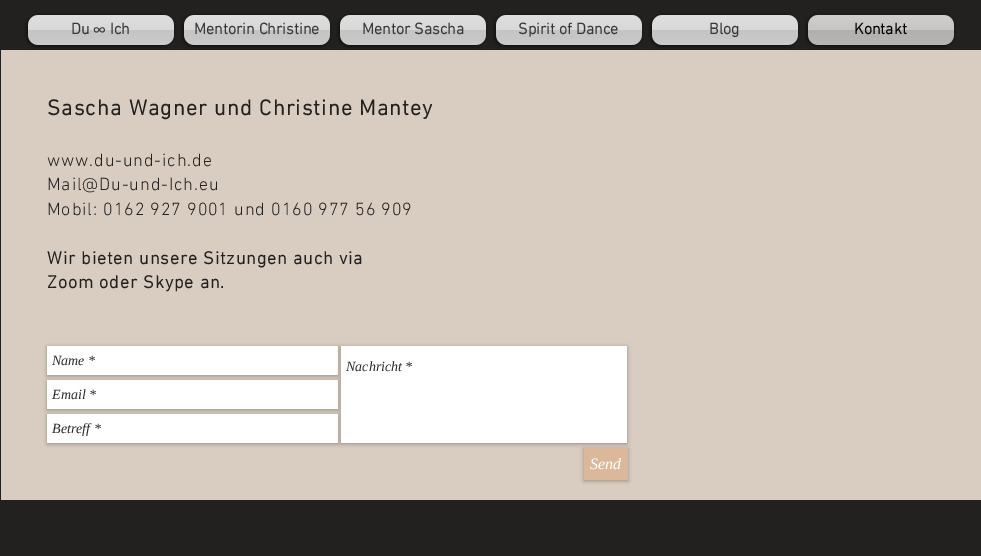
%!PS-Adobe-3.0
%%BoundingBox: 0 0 981 556
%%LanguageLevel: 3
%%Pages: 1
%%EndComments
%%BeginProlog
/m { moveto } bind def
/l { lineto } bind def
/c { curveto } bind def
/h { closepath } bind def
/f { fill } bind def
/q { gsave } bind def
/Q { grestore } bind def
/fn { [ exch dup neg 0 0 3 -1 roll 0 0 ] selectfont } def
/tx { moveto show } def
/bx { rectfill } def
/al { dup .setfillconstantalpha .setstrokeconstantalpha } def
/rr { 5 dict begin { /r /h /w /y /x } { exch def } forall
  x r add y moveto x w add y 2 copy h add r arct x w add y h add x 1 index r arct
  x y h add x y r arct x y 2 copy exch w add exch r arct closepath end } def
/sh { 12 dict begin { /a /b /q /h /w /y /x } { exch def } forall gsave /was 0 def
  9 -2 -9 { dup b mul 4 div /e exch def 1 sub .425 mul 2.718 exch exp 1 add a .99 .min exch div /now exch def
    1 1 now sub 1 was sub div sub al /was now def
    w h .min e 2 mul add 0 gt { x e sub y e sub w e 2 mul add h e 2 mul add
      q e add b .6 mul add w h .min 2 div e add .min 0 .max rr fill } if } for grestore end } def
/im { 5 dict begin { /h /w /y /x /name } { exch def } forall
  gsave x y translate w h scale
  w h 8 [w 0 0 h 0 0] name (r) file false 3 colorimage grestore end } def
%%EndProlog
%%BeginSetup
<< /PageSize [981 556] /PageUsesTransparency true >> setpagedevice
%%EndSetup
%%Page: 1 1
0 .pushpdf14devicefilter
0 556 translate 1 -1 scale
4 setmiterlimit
0.133 0.129 0.125 setrgbcolor
0 0 981 556 bx
q
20 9 m 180 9 l 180 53 l 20 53 l h 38 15 m 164 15 l 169.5 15 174 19.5 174 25 c 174 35 l 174 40.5 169.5 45 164 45 c 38 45 l 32.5 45 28 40.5 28 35 c 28 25 l 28 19.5 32.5 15 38 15 c h eoclip newpath
0 setgray
27 16 146 30 10 2 0.6 sh
Q
0.8 al
1 setgray
28 15 146 30 10 rr f
1 al
(image0.raw) 28 15 146 30 im
/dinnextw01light-Bold 16 fn
0.22 setgray
(Du ∞ Ich) 71 34 tx
q
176 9 m 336 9 l 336 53 l 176 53 l h 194 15 m 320 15 l 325.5 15 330 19.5 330 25 c 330 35 l 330 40.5 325.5 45 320 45 c 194 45 l 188.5 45 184 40.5 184 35 c 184 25 l 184 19.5 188.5 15 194 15 c h eoclip newpath
0 setgray
183 16 146 30 10 2 0.6 sh
Q
0.8 al
1 setgray
184 15 146 30 10 rr f
1 al
(image1.raw) 184 15 146 30 im
0.22 setgray
(Mentorin Christine) 194 34 tx
q
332 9 m 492 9 l 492 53 l 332 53 l h 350 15 m 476 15 l 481.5 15 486 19.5 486 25 c 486 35 l 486 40.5 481.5 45 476 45 c 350 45 l 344.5 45 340 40.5 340 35 c 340 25 l 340 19.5 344.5 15 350 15 c h eoclip newpath
0 setgray
339 16 146 30 10 2 0.6 sh
Q
0.8 al
1 setgray
340 15 146 30 10 rr f
1 al
(image1.raw) 340 15 146 30 im
0.22 setgray
(Mentor Sascha) 362 34 tx
q
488 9 m 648 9 l 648 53 l 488 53 l h 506 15 m 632 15 l 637.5 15 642 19.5 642 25 c 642 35 l 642 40.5 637.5 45 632 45 c 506 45 l 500.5 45 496 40.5 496 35 c 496 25 l 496 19.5 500.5 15 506 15 c h eoclip newpath
0 setgray
495 16 146 30 10 2 0.6 sh
Q
0.8 al
1 setgray
496 15 146 30 10 rr f
1 al
(image0.raw) 496 15 146 30 im
0.22 setgray
(Spirit of Dance) 518 34 tx
q
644 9 m 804 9 l 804 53 l 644 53 l h 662 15 m 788 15 l 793.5 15 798 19.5 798 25 c 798 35 l 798 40.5 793.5 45 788 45 c 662 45 l 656.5 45 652 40.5 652 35 c 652 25 l 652 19.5 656.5 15 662 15 c h eoclip newpath
0 setgray
651 16 146 30 10 2 0.6 sh
Q
0.8 al
1 setgray
652 15 146 30 10 rr f
1 al
(image0.raw) 652 15 146 30 im
0.22 setgray
(Blog) 709 34 tx
q
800 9 m 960 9 l 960 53 l 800 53 l h 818 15 m 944 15 l 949.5 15 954 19.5 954 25 c 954 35 l 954 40.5 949.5 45 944 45 c 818 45 l 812.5 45 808 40.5 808 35 c 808 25 l 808 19.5 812.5 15 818 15 c h eoclip newpath
0 setgray
807 16 146 30 10 2 0.6 sh
Q
0.9 al
0.816 0.812 0.804 setrgbcolor
808 15 146 30 10 rr f
1 al
(image2.raw) 808 15 146 30 im
0 setgray
(Kontakt) 854 34 tx
0.851 0.8 0.753 setrgbcolor
1 50 980 450 bx
/dinnextw01light-Bold 22 fn
0.133 0.129 0.125 setrgbcolor
47 115 m 1.1 0 (Sascha Wagner und Christine Mantey) ashow
/dinnextw01light-Light 18 fn
47 166 m 0.9 0 (www.du-und-ich.de) ashow
47 190 m 0.9 0 (Mail@Du-und-Ich.eu) ashow
47 215 m 0.9 0 (Mobil: 0162 927 9001 und 0160 977 56 909) ashow
/dinnextw01light-Bold 18 fn
47 264 m 0.9 0 (Wir bieten unsere Sitzungen auch via) ashow
47 288 m 0.9 0 (Zoom oder Skype an.) ashow
0 setgray
47 347 291 29 0 2 0.3 sh
1 setgray
47 346 291 29 bx
/LiberationSerif-Italic 14 fn
0.165 setgray
(Name *) 52 365 tx
0 setgray
47 381 291 29 0 2 0.3 sh
1 setgray
47 380 291 29 bx
0 setgray
47 415 291 29 0 2 0.3 sh
1 setgray
47 414 291 29 bx
0 setgray
341 347 286 97 0 2 0.3 sh
1 setgray
341 346 286 97 bx
0.165 setgray
(Nachricht *) 346 371 tx
(Email *) 52 399 tx
(Betreff *) 52 433 tx
0 setgray
584 449 44 32 0 2 0.3 sh
0.859 0.722 0.604 setrgbcolor
584 448 44 32 bx
/LiberationSerif-Italic 16 fn
1 setgray
(Send) 590 469 tx
.poppdf14devicefilter showpage
%%EOF
